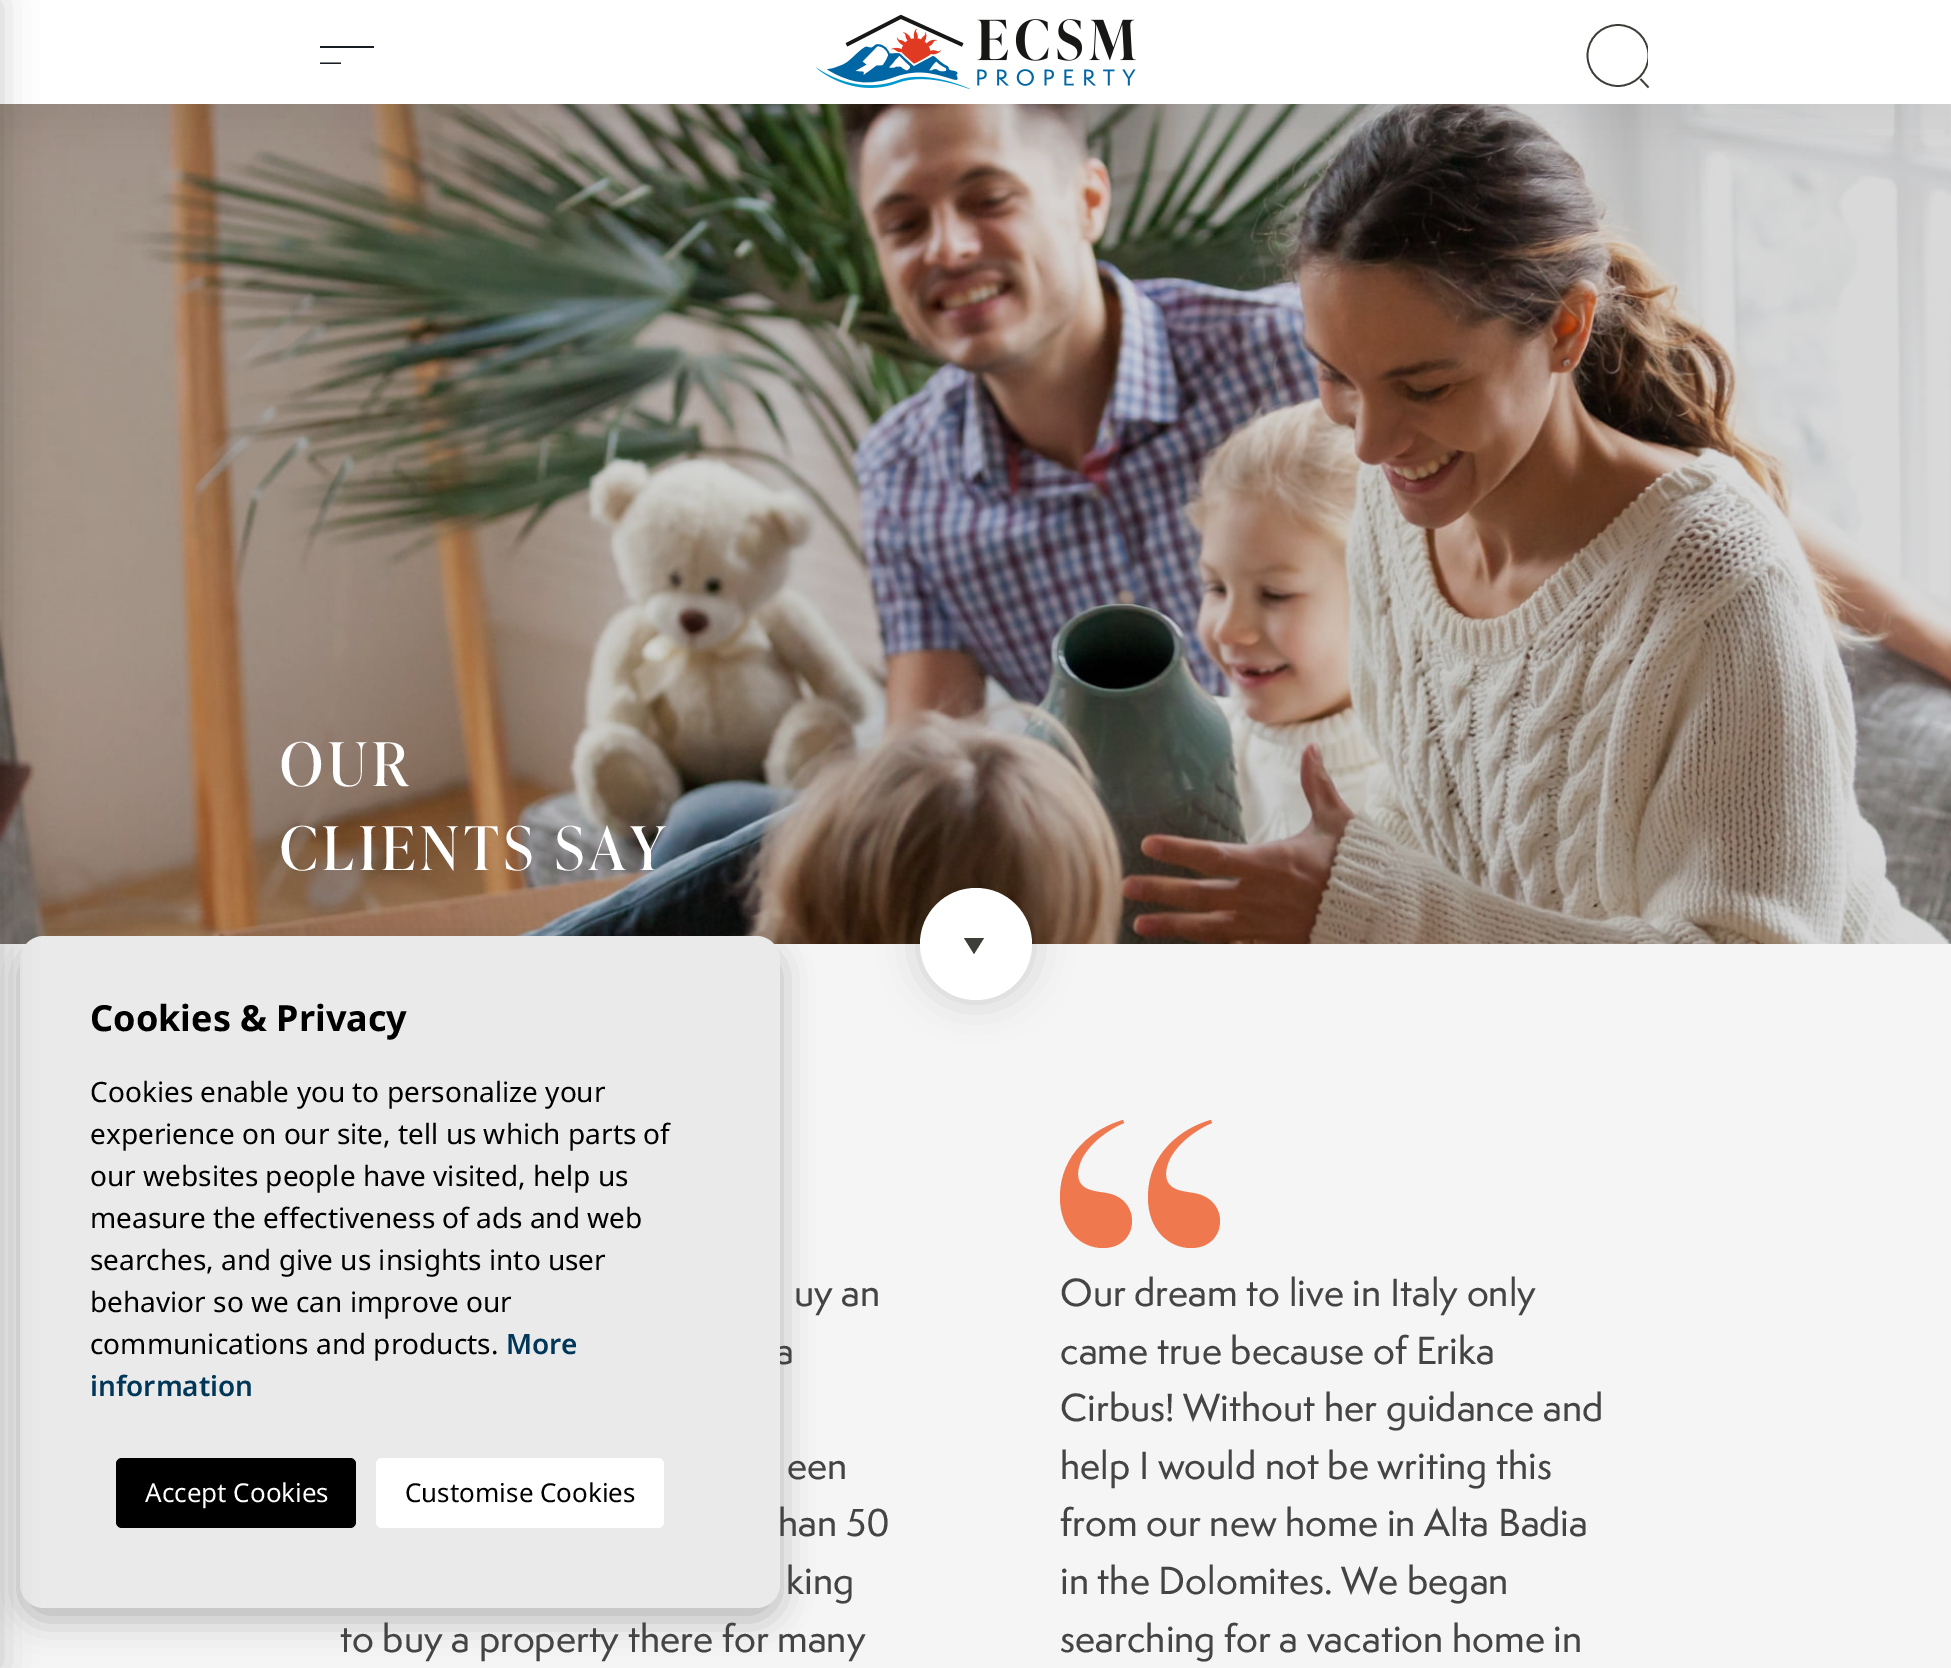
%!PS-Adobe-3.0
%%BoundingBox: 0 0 1951 1668
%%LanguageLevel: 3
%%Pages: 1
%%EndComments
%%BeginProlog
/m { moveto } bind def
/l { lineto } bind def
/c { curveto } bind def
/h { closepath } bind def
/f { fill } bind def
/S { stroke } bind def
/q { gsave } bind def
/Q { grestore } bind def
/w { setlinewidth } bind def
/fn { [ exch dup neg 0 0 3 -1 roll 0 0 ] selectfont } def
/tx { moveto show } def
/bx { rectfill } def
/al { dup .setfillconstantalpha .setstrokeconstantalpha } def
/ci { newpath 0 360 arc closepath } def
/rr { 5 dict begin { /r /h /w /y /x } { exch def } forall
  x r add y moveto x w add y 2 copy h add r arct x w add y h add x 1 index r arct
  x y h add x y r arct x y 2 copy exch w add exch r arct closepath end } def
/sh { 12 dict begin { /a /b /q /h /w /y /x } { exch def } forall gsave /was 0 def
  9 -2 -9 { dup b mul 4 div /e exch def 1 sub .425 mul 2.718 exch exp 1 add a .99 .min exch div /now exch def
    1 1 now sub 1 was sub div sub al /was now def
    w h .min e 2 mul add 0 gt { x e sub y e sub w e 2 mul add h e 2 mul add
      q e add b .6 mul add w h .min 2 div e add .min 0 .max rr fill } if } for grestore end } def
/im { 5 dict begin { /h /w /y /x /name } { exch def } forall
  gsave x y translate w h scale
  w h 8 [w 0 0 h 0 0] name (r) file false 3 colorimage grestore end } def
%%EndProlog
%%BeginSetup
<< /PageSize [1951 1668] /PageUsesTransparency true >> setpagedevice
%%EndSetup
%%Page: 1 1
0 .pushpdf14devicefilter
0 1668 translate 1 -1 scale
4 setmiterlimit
0.961 setgray
0 0 1951 1668 bx
(image1.raw) 0 104 1951 840 im
0 setgray
0 20 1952 104 0 20 0.05 sh
1 setgray
0 0 1951 104 bx
0.094 0.114 0.141 setrgbcolor
320 46 54 2 bx
q
320 46 54 18 rectclip
2 w
320 63.5 m 341 63.5 l S
Q
(image0.raw) 816 14 320 76 im
0.239 0.243 0.22 setrgbcolor
1.7 w
1640.5 79 m 1648.5 87.5 l S
q
1586 24 62 64 rectclip
1618 55.5 30.5 ci S
Q
0 setgray
20 948 760 672 24 16 0.25 sh
/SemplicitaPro-Medium 36 fn
0.267 setgray
(a) 775 1364 tx
0.918 setgray
20 936 760 672 24 rr f
0 setgray
-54 0 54 1668 0 18 0.2 sh
/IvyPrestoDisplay-Regular 60 fn
1 setgray
280 786 m 5 0 (OUR) ashow
280 870 m 5 0 (CLIENTS SAY) ashow
0 setgray
920 888 112 112 56 20 0.16 sh
1 setgray
976 944 56 ci f
0.239 0.243 0.22 setrgbcolor
964 938 m 984 938 l 974 954 l h f
/NotoSans-Bold 36 fn
0 setgray
(Cookies & Privacy) 90 1031 tx
/NotoSans-Regular 28 fn
(Cookies enable you to personalize your) 90 1102 tx
(experience on our site, tell us which parts of) 90 1144 tx
(our websites people have visited, help us) 90 1186 tx
(measure the effectiveness of ads and web) 90 1228 tx
(searches, and give us insights into user) 90 1270 tx
(behavior so we can improve our) 90 1312 tx
(communications and products.) 90 1354 tx
/NotoSans-SemiBold 28 fn
0 0.212 0.341 setrgbcolor
(More) 506 1354 tx
(information) 90 1396 tx
0 setgray
116 1458 240 70 6 rr f
/NotoSans-Regular 26 fn
1 setgray
(Accept Cookies) 145 1502 tx
376 1458 288 70 6 rr f
0 setgray
(Customise Cookies) 405 1502 tx
/SemplicitaPro-Medium 36 fn
0.267 setgray
(uy an) 794 1306 tx
(een) 787 1479 tx
(han 50) 778 1536 tx
(king) 786 1594 tx
(to buy a property there for many) 340 1652 tx
0.937 0.471 0.31 setrgbcolor
1124 1123 m 1104 1131 1078 1152 1078 1174 c 1078 1190 1093 1191 1106 1193 c 1125 1196 1132 1210 1132 1221 c 1132 1236 1121 1248 1103 1248 c 1082 1248 1060 1231 1060 1197 c 1060 1153 1095 1128 1123 1120 c h 1212 1123 m 1192 1131 1166 1152 1166 1174 c 1166 1190 1181 1191 1193 1193 c 1213 1196 1220 1210 1220 1221 c 1220 1236 1209 1248 1191 1248 c 1170 1248 1148 1231 1148 1197 c 1148 1153 1182 1128 1211 1120 c h f
0.267 setgray
(Our dream to live in Italy only) 1060 1306 tx
(came true because of Erika) 1060 1364 tx
(Cirbus! Without her guidance and) 1060 1421 tx
(help I would not be writing this) 1060 1479 tx
(from our new home in Alta Badia) 1060 1536 tx
(in the Dolomites. We began) 1060 1594 tx
(searching for a vacation home in) 1060 1652 tx
.poppdf14devicefilter showpage
%%EOF
